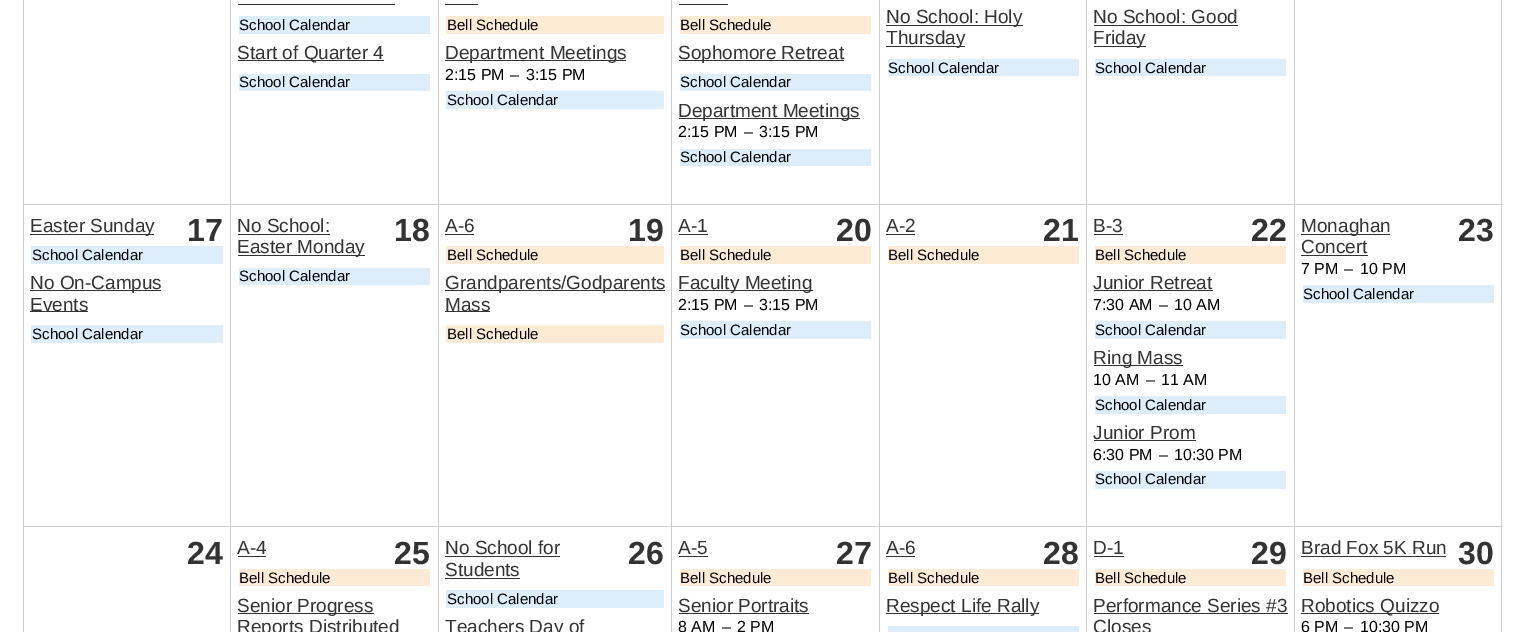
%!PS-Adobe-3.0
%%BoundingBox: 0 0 1524 632
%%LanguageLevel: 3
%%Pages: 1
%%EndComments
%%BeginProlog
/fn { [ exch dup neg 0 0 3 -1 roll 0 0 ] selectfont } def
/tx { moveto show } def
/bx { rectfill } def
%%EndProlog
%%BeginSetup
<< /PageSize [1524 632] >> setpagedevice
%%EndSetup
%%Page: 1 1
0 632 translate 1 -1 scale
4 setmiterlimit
1 setgray
0 0 1524 632 bx
0.8 setgray
1294 526 1 106 bx
1501 0 1 632 bx
1294 526 209 1 bx
1294 204 1 324 bx
1294 204 209 1 bx
1294 0 1 205 bx
1086 526 1 106 bx
1086 526 209 1 bx
1086 204 1 324 bx
1086 204 209 1 bx
1086 0 1 205 bx
879 526 1 106 bx
879 526 209 1 bx
879 204 1 324 bx
879 204 209 1 bx
879 0 1 205 bx
671 526 1 106 bx
671 526 209 1 bx
671 204 1 324 bx
671 204 209 1 bx
671 0 1 205 bx
438 526 1 106 bx
438 526 235 1 bx
438 204 1 324 bx
438 204 235 1 bx
438 0 1 205 bx
230 526 1 106 bx
230 526 209 1 bx
230 204 1 324 bx
230 204 209 1 bx
230 0 1 205 bx
23 526 1 106 bx
23 526 208 1 bx
23 204 1 324 bx
23 204 208 1 bx
23 0 1 205 bx
0.2 setgray
238 4 157 1 bx
0.867 0.933 0.98 setrgbcolor
239 16 191 18 bx
/LiberationSans-Regular 15 fn
0 setgray
(School Calendar) 239 30 tx
0.2 setgray
238 60 146 1 bx
/LiberationSans-Regular 19 fn
(Start of Quarter 4) 237 59 tx
0.867 0.933 0.98 setrgbcolor
239 74 191 17 bx
/LiberationSans-Regular 15 fn
0 setgray
(School Calendar) 239 87 tx
0.2 setgray
445 4 33 1 bx
0.996 0.922 0.839 setrgbcolor
446 16 218 18 bx
0 setgray
(Bell Schedule) 447 30 tx
0.2 setgray
445 60 181 1 bx
/LiberationSans-Regular 19 fn
(Department Meetings) 445 59 tx
/LiberationSans-Regular 16 fn
0 setgray
(2:15 PM) 445 80 tx
(–) 510 80 tx
(3:15 PM) 526 80 tx
0.867 0.933 0.98 setrgbcolor
446 91 218 18 bx
/LiberationSans-Regular 15 fn
0 setgray
(School Calendar) 447 105 tx
0.2 setgray
679 4 49 1 bx
0.996 0.922 0.839 setrgbcolor
680 16 191 18 bx
0 setgray
(Bell Schedule) 680 30 tx
0.2 setgray
679 60 165 1 bx
/LiberationSans-Regular 19 fn
(Sophomore Retreat) 678 59 tx
0.867 0.933 0.98 setrgbcolor
680 74 191 17 bx
/LiberationSans-Regular 15 fn
0 setgray
(School Calendar) 680 87 tx
0.2 setgray
679 118 181 1 bx
/LiberationSans-Regular 19 fn
(Department Meetings) 678 117 tx
/LiberationSans-Regular 16 fn
0 setgray
(2:15 PM) 678 137 tx
(–) 744 137 tx
(3:15 PM) 759 137 tx
0.867 0.933 0.98 setrgbcolor
680 149 191 17 bx
/LiberationSans-Regular 15 fn
0 setgray
(School Calendar) 680 162 tx
0.2 setgray
886 25 137 1 bx
/LiberationSans-Regular 19 fn
(No School: Holy) 886 23 tx
886 46 79 1 bx
(Thursday) 886 44 tx
0.867 0.933 0.98 setrgbcolor
888 59 191 17 bx
/LiberationSans-Regular 15 fn
0 setgray
(School Calendar) 888 73 tx
/LiberationSans-Regular 19 fn
0.2 setgray
(No School: Good) 1093 23 tx
1094 25 144 1 bx
1094 46 52 1 bx
(Friday) 1093 44 tx
0.867 0.933 0.98 setrgbcolor
1095 59 191 17 bx
/LiberationSans-Regular 15 fn
0 setgray
(School Calendar) 1095 73 tx
0.2 setgray
30 234 124 1 bx
/LiberationSans-Regular 19 fn
(Easter Sunday) 30 232 tx
0.867 0.933 0.98 setrgbcolor
31 246 192 18 bx
/LiberationSans-Regular 15 fn
0 setgray
(School Calendar) 32 260 tx
0.2 setgray
30 290 131 1 bx
/LiberationSans-Regular 19 fn
(No On-Campus) 30 289 tx
30 311 58 1 bx
(Events) 30 311 tx
0.867 0.933 0.98 setrgbcolor
31 325 192 18 bx
/LiberationSans-Regular 15 fn
0 setgray
(School Calendar) 32 339 tx
/LiberationSans-Bold 32 fn
0.2 setgray
(17) 187 241 tx
/LiberationSans-Regular 19 fn
(No School:) 237 232 tx
238 234 92 1 bx
238 255 127 1 bx
(Easter Monday) 237 253 tx
0.867 0.933 0.98 setrgbcolor
239 268 191 17 bx
/LiberationSans-Regular 15 fn
0 setgray
(School Calendar) 239 281 tx
/LiberationSans-Bold 32 fn
0.2 setgray
(18) 394 241 tx
/LiberationSans-Regular 19 fn
(A-6) 445 232 tx
445 234 29 1 bx
0.996 0.922 0.839 setrgbcolor
446 246 218 18 bx
/LiberationSans-Regular 15 fn
0 setgray
(Bell Schedule) 447 260 tx
0.2 setgray
445 290 220 1 bx
/LiberationSans-Regular 19 fn
(Grandparents/Godparents) 445 289 tx
445 311 45 1 bx
(Mass) 445 311 tx
0.996 0.922 0.839 setrgbcolor
446 325 218 18 bx
/LiberationSans-Regular 15 fn
0 setgray
(Bell Schedule) 447 339 tx
/LiberationSans-Bold 32 fn
0.2 setgray
(19) 628 241 tx
/LiberationSans-Regular 19 fn
(A-1) 678 232 tx
679 234 29 1 bx
0.996 0.922 0.839 setrgbcolor
680 246 191 18 bx
/LiberationSans-Regular 15 fn
0 setgray
(Bell Schedule) 680 260 tx
0.2 setgray
679 290 134 1 bx
/LiberationSans-Regular 19 fn
(Faculty Meeting) 678 289 tx
/LiberationSans-Regular 16 fn
0 setgray
(2:15 PM) 678 310 tx
(–) 744 310 tx
(3:15 PM) 759 310 tx
0.867 0.933 0.98 setrgbcolor
680 321 191 18 bx
/LiberationSans-Regular 15 fn
0 setgray
(School Calendar) 680 335 tx
/LiberationSans-Bold 32 fn
0.2 setgray
(20) 836 241 tx
/LiberationSans-Regular 19 fn
(A-2) 886 232 tx
886 234 29 1 bx
0.996 0.922 0.839 setrgbcolor
888 246 191 18 bx
/LiberationSans-Regular 15 fn
0 setgray
(Bell Schedule) 888 260 tx
/LiberationSans-Bold 32 fn
0.2 setgray
(21) 1043 241 tx
/LiberationSans-Regular 19 fn
(B-3) 1093 232 tx
1094 234 29 1 bx
0.996 0.922 0.839 setrgbcolor
1095 246 191 18 bx
/LiberationSans-Regular 15 fn
0 setgray
(Bell Schedule) 1095 260 tx
/LiberationSans-Regular 19 fn
0.2 setgray
(Junior Retreat) 1093 289 tx
1094 290 119 1 bx
/LiberationSans-Regular 16 fn
0 setgray
(7:30 AM) 1093 310 tx
(–) 1159 310 tx
(10 AM) 1174 310 tx
0.867 0.933 0.98 setrgbcolor
1095 321 191 18 bx
/LiberationSans-Regular 15 fn
0 setgray
(School Calendar) 1095 335 tx
0.2 setgray
1094 365 89 1 bx
/LiberationSans-Regular 19 fn
(Ring Mass) 1093 364 tx
/LiberationSans-Regular 16 fn
0 setgray
(10 AM) 1093 385 tx
(–) 1146 385 tx
(11 AM) 1161 385 tx
0.867 0.933 0.98 setrgbcolor
1095 396 191 18 bx
/LiberationSans-Regular 15 fn
0 setgray
(School Calendar) 1095 410 tx
/LiberationSans-Regular 19 fn
0.2 setgray
(Junior Prom) 1093 439 tx
1094 440 102 1 bx
/LiberationSans-Regular 16 fn
0 setgray
(6:30 PM) 1093 460 tx
(–) 1159 460 tx
(10:30 PM) 1174 460 tx
0.867 0.933 0.98 setrgbcolor
1095 471 191 18 bx
/LiberationSans-Regular 15 fn
0 setgray
(School Calendar) 1095 484 tx
/LiberationSans-Bold 32 fn
0.2 setgray
(22) 1251 241 tx
1301 234 89 1 bx
/LiberationSans-Regular 19 fn
(Monaghan) 1301 232 tx
(Concert) 1301 253 tx
1301 255 67 1 bx
/LiberationSans-Regular 16 fn
0 setgray
(7 PM) 1301 274 tx
(–) 1344 274 tx
(10 PM) 1360 274 tx
0.867 0.933 0.98 setrgbcolor
1303 285 191 18 bx
/LiberationSans-Regular 15 fn
0 setgray
(School Calendar) 1303 299 tx
/LiberationSans-Bold 32 fn
0.2 setgray
(23) 1458 241 tx
(24) 187 564 tx
/LiberationSans-Regular 19 fn
(A-4) 237 554 tx
238 556 28 1 bx
0.996 0.922 0.839 setrgbcolor
239 569 191 17 bx
/LiberationSans-Regular 15 fn
0 setgray
(Bell Schedule) 239 583 tx
0.2 setgray
238 613 136 1 bx
/LiberationSans-Regular 19 fn
(Senior Progress) 237 612 tx
(Reports Distributed) 237 633 tx
/LiberationSans-Bold 32 fn
(25) 394 564 tx
/LiberationSans-Regular 19 fn
(No School for) 445 554 tx
445 556 115 1 bx
(Students) 445 576 tx
445 578 75 1 bx
0.867 0.933 0.98 setrgbcolor
446 590 218 18 bx
/LiberationSans-Regular 15 fn
0 setgray
(School Calendar) 447 604 tx
/LiberationSans-Regular 19 fn
0.2 setgray
(Teachers Day of) 445 633 tx
/LiberationSans-Bold 32 fn
(26) 628 564 tx
/LiberationSans-Regular 19 fn
(A-5) 678 554 tx
679 556 29 1 bx
0.996 0.922 0.839 setrgbcolor
680 569 191 17 bx
/LiberationSans-Regular 15 fn
0 setgray
(Bell Schedule) 680 583 tx
/LiberationSans-Regular 19 fn
0.2 setgray
(Senior Portraits) 678 612 tx
679 613 130 1 bx
/LiberationSans-Regular 16 fn
0 setgray
(8 AM) 678 632 tx
(–) 722 632 tx
(2 PM) 737 632 tx
/LiberationSans-Bold 32 fn
0.2 setgray
(27) 836 564 tx
/LiberationSans-Regular 19 fn
(A-6) 886 554 tx
886 556 29 1 bx
0.996 0.922 0.839 setrgbcolor
888 569 191 17 bx
/LiberationSans-Regular 15 fn
0 setgray
(Bell Schedule) 888 583 tx
0.2 setgray
886 613 153 1 bx
/LiberationSans-Regular 19 fn
(Respect Life Rally) 886 612 tx
0.867 0.933 0.98 setrgbcolor
888 626 191 6 bx
/LiberationSans-Bold 32 fn
0.2 setgray
(28) 1043 564 tx
/LiberationSans-Regular 19 fn
(D-1) 1093 554 tx
1094 556 30 1 bx
0.996 0.922 0.839 setrgbcolor
1095 569 191 17 bx
/LiberationSans-Regular 15 fn
0 setgray
(Bell Schedule) 1095 583 tx
/LiberationSans-Regular 19 fn
0.2 setgray
(Performance Series #3) 1093 612 tx
1094 613 194 1 bx
(Closes) 1093 633 tx
/LiberationSans-Bold 32 fn
(29) 1251 564 tx
/LiberationSans-Regular 19 fn
(Brad Fox 5K Run) 1301 554 tx
1301 556 145 1 bx
0.996 0.922 0.839 setrgbcolor
1303 569 191 17 bx
/LiberationSans-Regular 15 fn
0 setgray
(Bell Schedule) 1303 583 tx
0.2 setgray
1301 613 138 1 bx
/LiberationSans-Regular 19 fn
(Robotics Quizzo) 1301 612 tx
/LiberationSans-Regular 16 fn
0 setgray
(6 PM) 1301 632 tx
(–) 1344 632 tx
(10:30 PM) 1360 632 tx
/LiberationSans-Bold 32 fn
0.2 setgray
(30) 1458 564 tx
showpage
%%EOF
